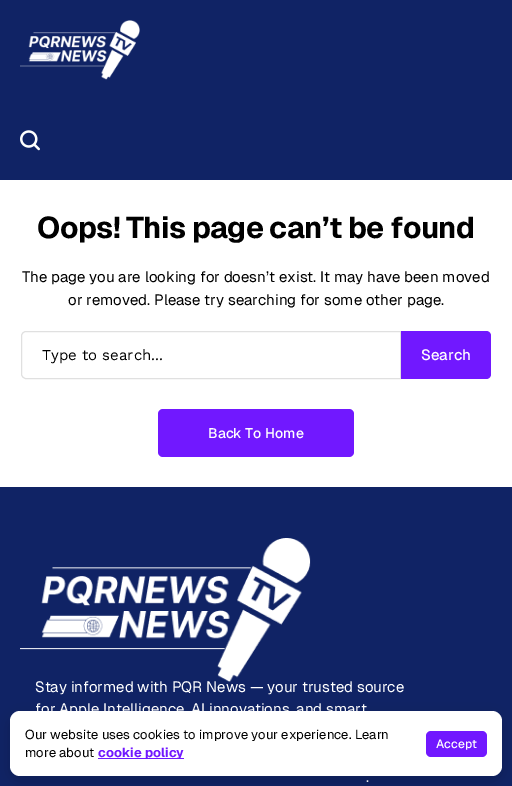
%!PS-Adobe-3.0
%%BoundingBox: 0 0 512 786
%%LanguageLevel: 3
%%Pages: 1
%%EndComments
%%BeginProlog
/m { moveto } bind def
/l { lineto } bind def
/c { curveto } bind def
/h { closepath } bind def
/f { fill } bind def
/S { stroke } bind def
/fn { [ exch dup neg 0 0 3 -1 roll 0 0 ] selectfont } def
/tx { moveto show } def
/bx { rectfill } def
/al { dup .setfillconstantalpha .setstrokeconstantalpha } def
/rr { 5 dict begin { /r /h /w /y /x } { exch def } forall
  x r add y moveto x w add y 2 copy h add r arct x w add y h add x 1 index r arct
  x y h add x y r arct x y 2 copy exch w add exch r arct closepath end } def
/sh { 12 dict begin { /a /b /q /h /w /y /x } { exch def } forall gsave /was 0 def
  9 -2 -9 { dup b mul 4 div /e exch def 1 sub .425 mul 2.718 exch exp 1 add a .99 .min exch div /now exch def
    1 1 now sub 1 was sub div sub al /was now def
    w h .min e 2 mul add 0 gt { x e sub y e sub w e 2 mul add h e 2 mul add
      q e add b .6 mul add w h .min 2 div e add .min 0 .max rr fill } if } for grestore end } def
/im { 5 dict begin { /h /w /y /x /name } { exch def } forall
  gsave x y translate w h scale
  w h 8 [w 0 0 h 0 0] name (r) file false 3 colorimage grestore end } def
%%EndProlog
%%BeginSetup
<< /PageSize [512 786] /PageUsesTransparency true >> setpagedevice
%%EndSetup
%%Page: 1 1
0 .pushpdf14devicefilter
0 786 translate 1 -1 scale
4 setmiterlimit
1 setgray
0 0 512 786 bx
0.063 0.137 0.396 setrgbcolor
0 0 512 180 bx
(image0.raw) 20 20 120 60 im
(image1.raw) 20 130 20 21 im
/Geist-Bold 30 fn
0 setgray
37 238 m -0.6 0 (Oops! This page can’t be found) ashow
/Geist-Regular 15 fn
(The page you are looking for doesn’t exist. It may have been moved) 22 282 tx
(or removed. Please try searching for some other page.) 68 305 tx
0.878 setgray
26 331.5 m 400.5 331.5 l 400.5 378.5 l 26 378.5 l 23.5 378.5 21.5 376.5 21.5 374 c 21.5 336 l 21.5 333.5 23.5 331.5 26 331.5 c h S
/WorkSans-Regular 15 fn
0 setgray
(Type to search...) 42 360 tx
0.443 0.094 1 setrgbcolor
401 331 m 486 331 l 489 331 491 333 491 336 c 491 374 l 491 377 489 379 486 379 c 401 379 l h f
/Geist-Medium 15 fn
1 setgray
(Search) 421 360 tx
0.443 0.094 1 setrgbcolor
158 409 196 48 5 rr f
/Geist-Medium 14 fn
1 setgray
(Back To Home) 208 438 tx
0.063 0.137 0.396 setrgbcolor
0 487 512 299 bx
(image2.raw) 20 538 291 144 im
/Geist-Regular 15 fn
1 setgray
(Stay informed with PQR News — your trusted source) 35 692 tx
(for Apple Intelligence, AI innovations, and smart) 35 714 tx
(.) 366 782 tx
0 setgray
13 719 486 59 7 7.5 0.2 sh
1 setgray
10 711 492 65 10 rr f
/Geist-Regular 13 fn
0 setgray
(Our website uses cookies to improve your experience. Learn) 25 739 tx
(more about) 25 757 tx
0.443 0.094 1 setrgbcolor
98 758 86 1 bx
/Geist-Bold 13 fn
(cookie policy) 98 757 tx
426 731 61 26 5 rr f
/Geist-Medium 12 fn
1 setgray
(Accept) 436 748 tx
.poppdf14devicefilter showpage
%%EOF
